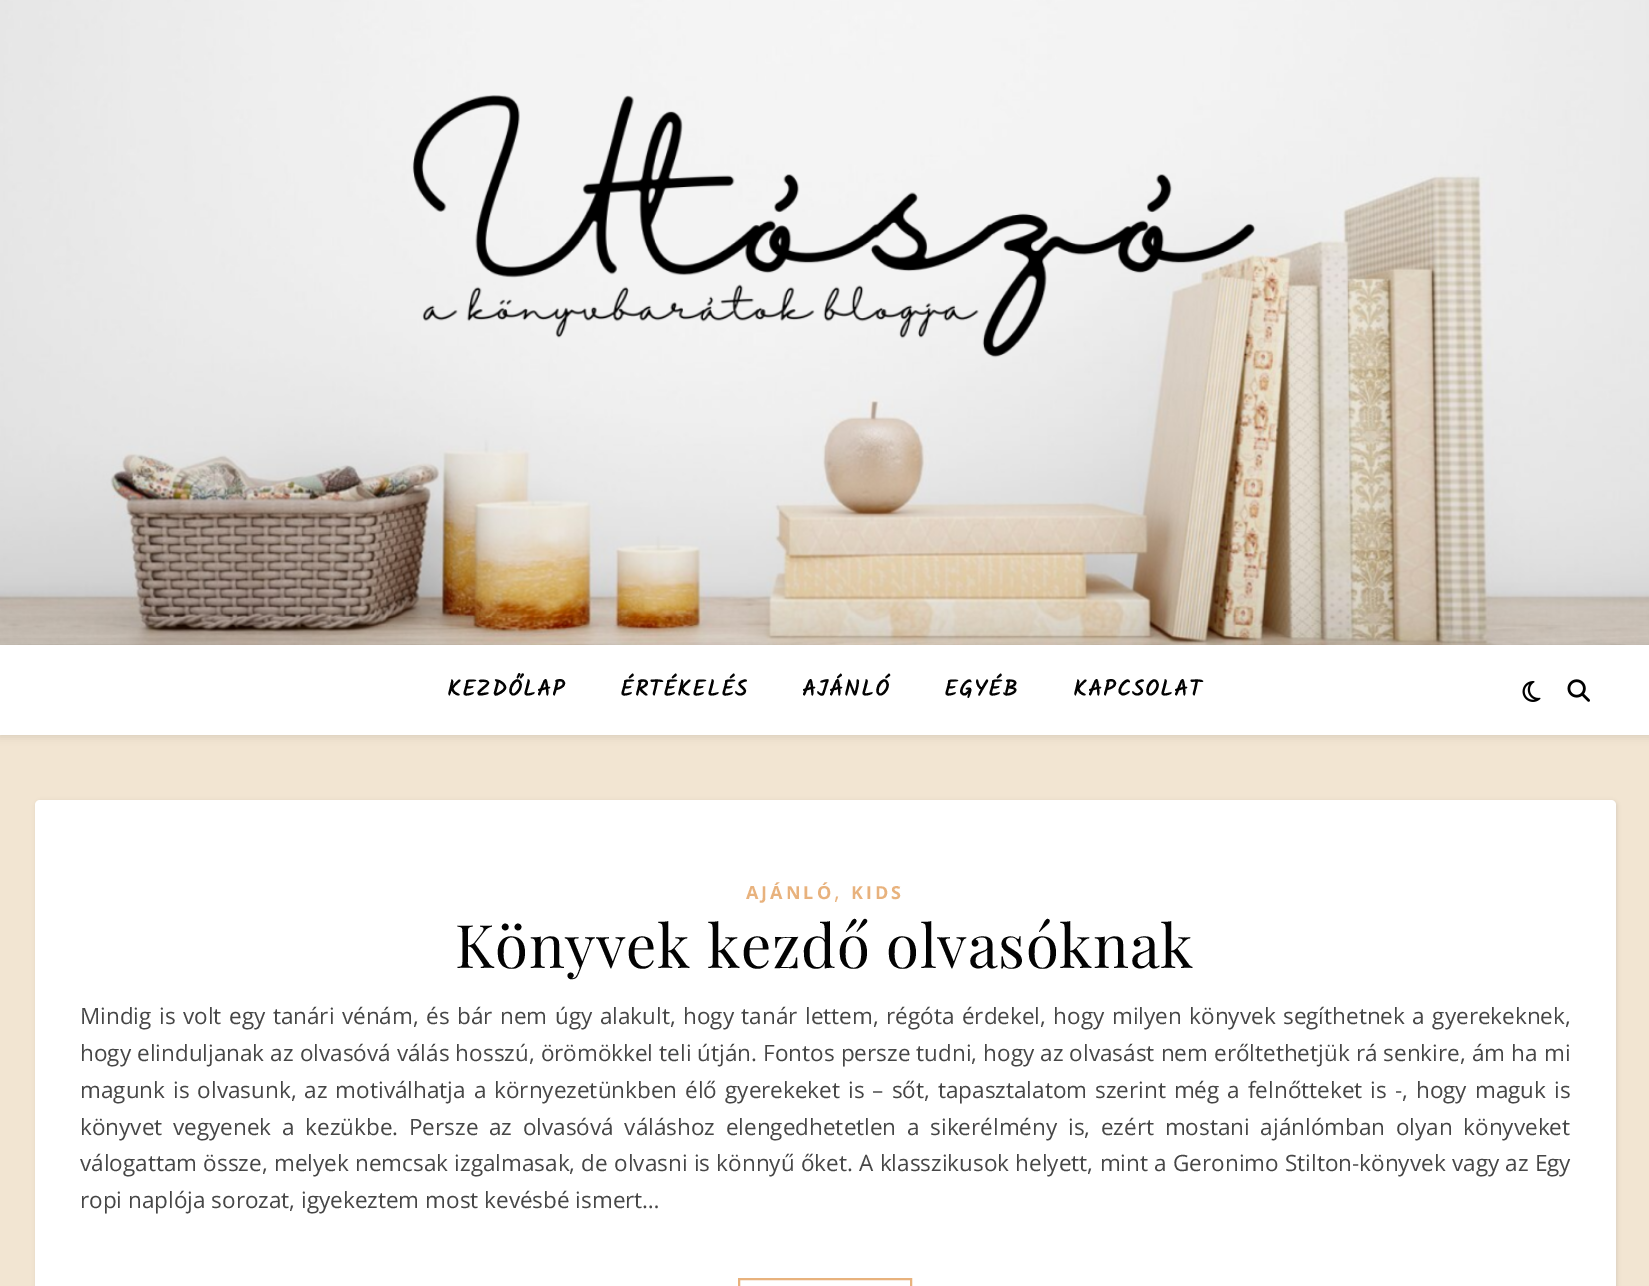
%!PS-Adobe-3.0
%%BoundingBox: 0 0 1649 1286
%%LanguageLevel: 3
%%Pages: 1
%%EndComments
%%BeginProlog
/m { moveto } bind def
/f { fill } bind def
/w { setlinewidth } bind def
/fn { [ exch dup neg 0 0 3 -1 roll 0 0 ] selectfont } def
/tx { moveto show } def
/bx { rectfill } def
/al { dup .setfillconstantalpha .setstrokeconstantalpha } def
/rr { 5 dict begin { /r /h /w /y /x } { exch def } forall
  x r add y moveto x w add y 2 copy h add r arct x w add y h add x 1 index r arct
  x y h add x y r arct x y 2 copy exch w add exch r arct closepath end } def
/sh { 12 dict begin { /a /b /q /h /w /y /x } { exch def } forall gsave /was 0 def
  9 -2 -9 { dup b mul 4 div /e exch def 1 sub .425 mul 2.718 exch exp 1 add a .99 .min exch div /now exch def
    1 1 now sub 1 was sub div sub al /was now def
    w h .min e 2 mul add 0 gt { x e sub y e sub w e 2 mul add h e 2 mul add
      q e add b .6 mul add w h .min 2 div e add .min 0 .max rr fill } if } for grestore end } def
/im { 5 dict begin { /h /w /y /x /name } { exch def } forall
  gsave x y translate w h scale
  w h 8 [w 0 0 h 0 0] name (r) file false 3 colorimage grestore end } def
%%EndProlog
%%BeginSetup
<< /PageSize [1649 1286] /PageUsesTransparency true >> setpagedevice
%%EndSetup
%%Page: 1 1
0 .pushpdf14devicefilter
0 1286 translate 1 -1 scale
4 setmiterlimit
0.949 0.898 0.824 setrgbcolor
0 0 1649 1286 bx
(image0.raw) 0 0 1649 645 im
0 setgray
0 647 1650 90 0 4 0.1 sh
1 setgray
0 645 1649 90 bx
/Kalam-Bold 22.5 fn
0.012 setgray
447 696 m 1.5 0 (KEZDŐLAP) ashow
620 696 m 1.5 0 (ÉRTÉKELÉS) ashow
802 696 m 1.5 0 (AJÁNLÓ) ashow
944 696 m 1.5 0 (EGYÉB) ashow
1073 696 m 1.5 0 (KAPCSOLAT) ashow
(image1.raw) 1522 681 19 21 im
(image2.raw) 1567 679 23 23 im
0 setgray
36 801 1581 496 5 2 0.1 sh
1 setgray
35 800 1581 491 5 rr f
/OpenSans-Bold 18 fn
0.91 0.698 0.49 setrgbcolor
746 899 m 3 0 (AJÁNLÓ) ashow
/OpenSans-Regular 22.5 fn
(,) 834 899 tx
/OpenSans-Bold 18 fn
851 899 m 3 0 (KIDS) ashow
/PlayfairDisplay-Regular 60 fn
0.012 setgray
455 968 m 0.75 0 (Könyvek kezdő olvasóknak) ashow
/OpenSans-Regular 22.5 fn
0.275 setgray
80 1024 m 1.7 0 32 (Mindig is volt egy tanári vénám, és bár nem úgy alakult, hogy tanár lettem, régóta érdekel, hogy milyen könyvek segíthetnek a gyerekeknek,) widthshow
80 1061 m 0.3 0 32 (hogy elinduljanak az olvasóvá válás hosszú, örömökkel teli útján. Fontos persze tudni, hogy az olvasást nem erőltethetjük rá senkire, ám ha mi) widthshow
80 1098 m 2.2 0 32 (magunk is olvasunk, az motiválhatja a környezetünkben élő gyerekeket is – sőt, tapasztalatom szerint még a felnőtteket is -, hogy maguk is) widthshow
80 1135 m 4.9 0 32 (könyvet vegyenek a kezükbe. Persze az olvasóvá váláshoz elengedhetetlen a sikerélmény is, ezért mostani ajánlómban olyan könyveket) widthshow
80 1171 m 0.5 0 32 (válogattam össze, melyek nemcsak izgalmasak, de olvasni is könnyű őket. A klasszikusok helyett, mint a Geronimo Stilton-könyvek vagy az Egy) widthshow
(ropi naplója sorozat, igyekeztem most kevésbé ismert…) 80 1208 tx
0.91 0.698 0.49 setrgbcolor
2 w
739 1279 172 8 rectstroke
.poppdf14devicefilter showpage
%%EOF
